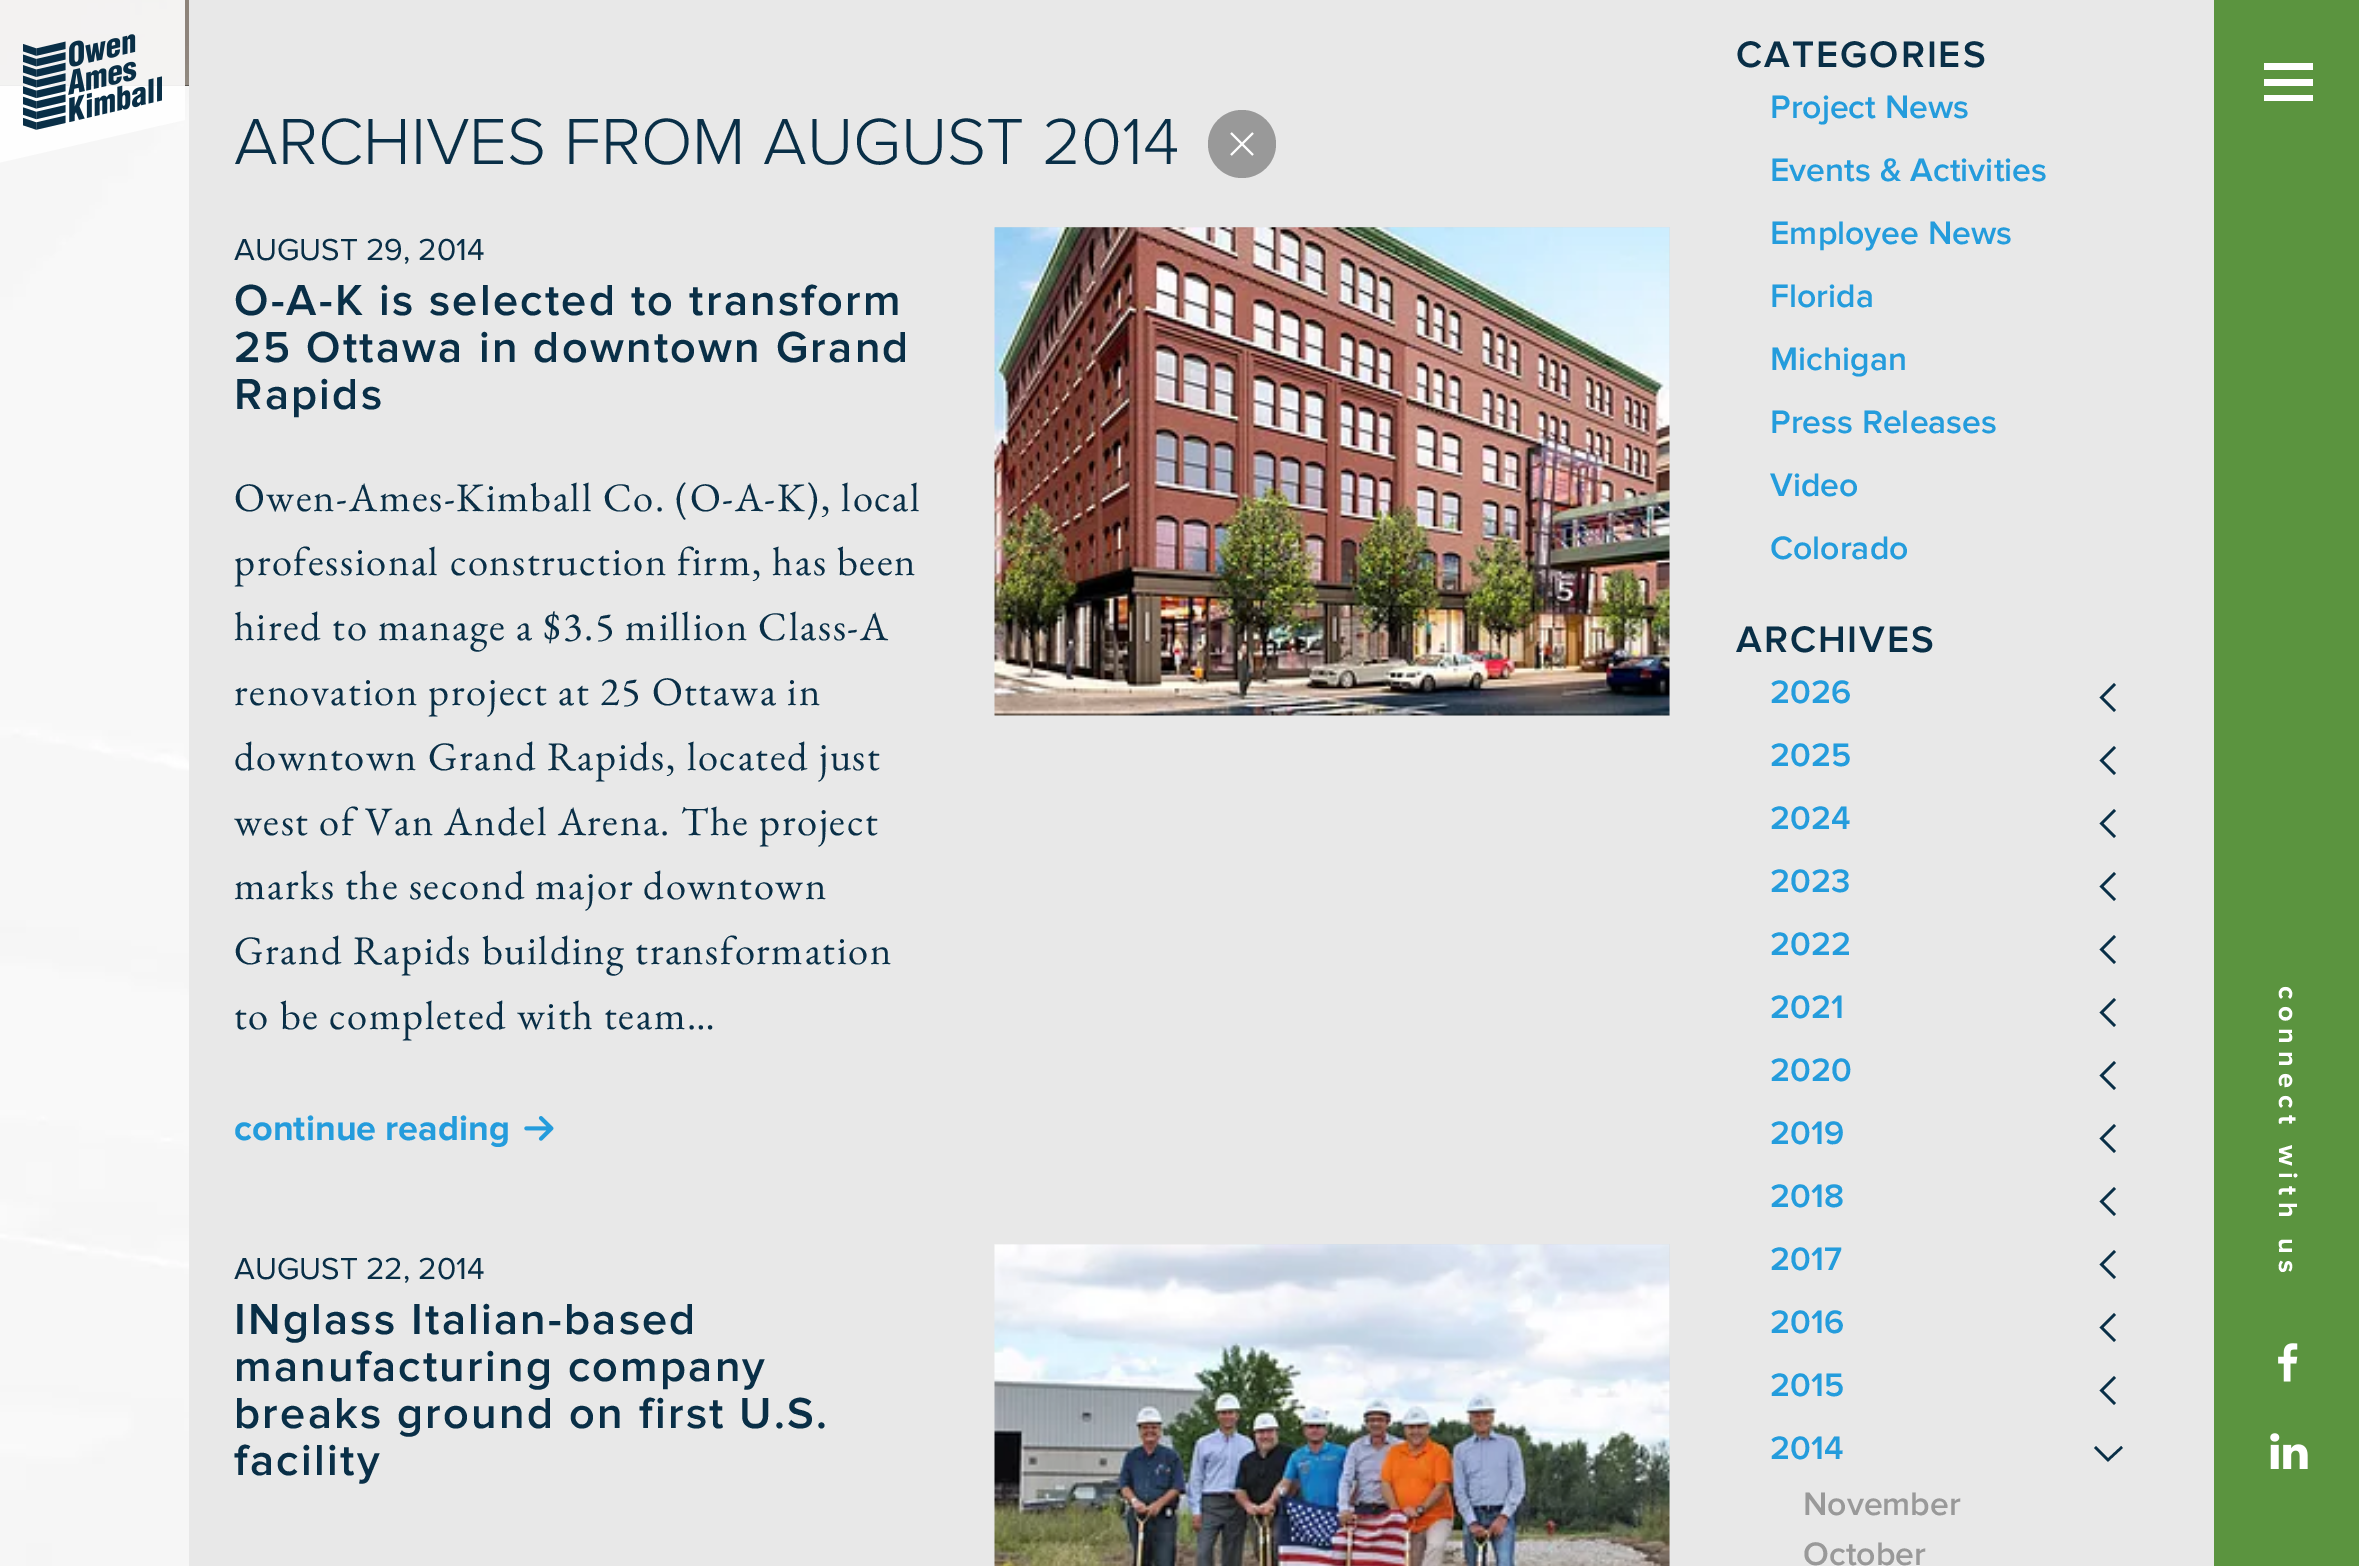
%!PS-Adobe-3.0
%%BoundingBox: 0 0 2359 1566
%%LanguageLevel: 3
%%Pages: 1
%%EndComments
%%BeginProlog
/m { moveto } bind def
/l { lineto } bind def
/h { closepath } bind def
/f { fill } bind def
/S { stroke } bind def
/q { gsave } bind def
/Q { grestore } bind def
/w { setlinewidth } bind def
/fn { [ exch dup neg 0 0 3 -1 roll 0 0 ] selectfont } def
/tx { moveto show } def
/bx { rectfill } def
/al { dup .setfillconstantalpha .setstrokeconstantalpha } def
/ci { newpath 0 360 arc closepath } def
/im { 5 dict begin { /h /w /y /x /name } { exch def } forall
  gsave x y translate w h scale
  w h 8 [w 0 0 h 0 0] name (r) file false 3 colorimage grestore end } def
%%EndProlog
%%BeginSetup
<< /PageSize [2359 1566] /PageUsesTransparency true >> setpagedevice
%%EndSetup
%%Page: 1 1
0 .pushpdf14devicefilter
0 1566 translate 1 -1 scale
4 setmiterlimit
1 setgray
0 0 2359 1566 bx
(image0.raw) 0 86 189 1480 im
0.133 setgray
0 85 189 1 bx
(image1.raw) 0 0 189 86 im
0.91 setgray
189 0 2025 1566 bx
/ProximaNova-Light 67.5 fn
0.035 0.184 0.278 setrgbcolor
(ARCHIVES FROM AUGUST 2014) 234 164 tx
0.6 setgray
1242 144 34 ci f
1 setgray
1.9 w
1253 155 m 1231 133 l 1253 133 m 1231 155 l S
/ProximaNova-Regular 31.5 fn
0.035 0.184 0.278 setrgbcolor
(AUGUST 29, 2014) 234 260 tx
/ProximaNova-SemiBold 45 fn
234 315 m 2.25 0 (O-A-K is selected to transform) ashow
234 362 m 2.25 0 (25 Ottawa in downtown Grand) ashow
234 409 m 2.25 0 (Rapids) ashow
/EBGaramond-Regular 40.5 fn
234 511 m 1.6 0 (Owen-Ames-Kimball Co. \(O-A-K\), local) ashow
234 575 m 1.6 0 (professional construction firm, has been) ashow
234 640 m 1.6 0 (hired to manage a $3.5 million Class-A) ashow
234 705 m 1.6 0 (renovation project at 25 Ottawa in) ashow
234 770 m 1.6 0 (downtown Grand Rapids, located just) ashow
234 835 m 1.6 0 (west of Van Andel Arena. The project) ashow
234 899 m 1.6 0 (marks the second major downtown) ashow
234 964 m 1.6 0 (Grand Rapids building transformation) ashow
234 1029 m 1.6 0 (to be completed with team…) ashow
/ProximaNova-Bold 36 fn
0.141 0.612 0.863 setrgbcolor
(continue reading) 234 1140 tx
(image2.raw) 524 1116 30 25 im
0.867 setgray
995 227 675 489 bx
(image3.raw) 994 227 676 489 im
/ProximaNova-Regular 31.5 fn
0.035 0.184 0.278 setrgbcolor
(AUGUST 22, 2014) 234 1279 tx
/ProximaNova-SemiBold 45 fn
234 1334 m 2.25 0 (INglass Italian-based) ashow
234 1381 m 2.25 0 (manufacturing company) ashow
234 1428 m 2.25 0 (breaks ground on first U.S.) ashow
234 1475 m 2.25 0 (facility) ashow
0.867 setgray
995 1244 675 322 bx
(image4.raw) 994 1244 676 322 im
/ProximaNova-SemiBold 38.25 fn
0.035 0.184 0.278 setrgbcolor
1736 67 m 2 0 (CATEGORIES) ashow
/ProximaNova-SemiBold 33.75 fn
0.141 0.612 0.863 setrgbcolor
(Project News) 1770 118 tx
(Events & Activities) 1770 181 tx
(Employee News) 1770 244 tx
(Florida) 1770 307 tx
(Michigan) 1770 370 tx
(Press Releases) 1770 433 tx
(Video) 1770 496 tx
(Colorado) 1770 559 tx
/ProximaNova-SemiBold 38.25 fn
0.035 0.184 0.278 setrgbcolor
1736 652 m 2 0 (ARCHIVES) ashow
/ProximaNova-SemiBold 33.75 fn
0.141 0.612 0.863 setrgbcolor
(2026) 1770 703 tx
0.035 0.184 0.278 setrgbcolor
2.5 w
2115 684 m 2101.5 697.5 l 2115 711 l S
0.141 0.612 0.863 setrgbcolor
(2025) 1770 766 tx
0.035 0.184 0.278 setrgbcolor
2115 747 m 2101.5 760.5 l 2115 774 l S
0.141 0.612 0.863 setrgbcolor
(2024) 1770 829 tx
0.035 0.184 0.278 setrgbcolor
2115 810 m 2101.5 823.5 l 2115 837 l S
0.141 0.612 0.863 setrgbcolor
(2023) 1770 892 tx
0.035 0.184 0.278 setrgbcolor
2115 873 m 2101.5 886.5 l 2115 900 l S
0.141 0.612 0.863 setrgbcolor
(2022) 1770 955 tx
0.035 0.184 0.278 setrgbcolor
2115 936 m 2101.5 949.5 l 2115 963 l S
0.141 0.612 0.863 setrgbcolor
(2021) 1770 1018 tx
0.035 0.184 0.278 setrgbcolor
2115 999 m 2101.5 1012.5 l 2115 1026 l S
0.141 0.612 0.863 setrgbcolor
(2020) 1770 1081 tx
0.035 0.184 0.278 setrgbcolor
2115 1062 m 2101.5 1075.5 l 2115 1089 l S
0.141 0.612 0.863 setrgbcolor
(2019) 1770 1144 tx
0.035 0.184 0.278 setrgbcolor
2115 1125 m 2101.5 1138.5 l 2115 1152 l S
0.141 0.612 0.863 setrgbcolor
(2018) 1770 1207 tx
0.035 0.184 0.278 setrgbcolor
2115 1188 m 2101.5 1201.5 l 2115 1215 l S
0.141 0.612 0.863 setrgbcolor
(2017) 1770 1270 tx
0.035 0.184 0.278 setrgbcolor
2115 1251 m 2101.5 1264.5 l 2115 1278 l S
0.141 0.612 0.863 setrgbcolor
(2016) 1770 1333 tx
0.035 0.184 0.278 setrgbcolor
2115 1314 m 2101.5 1327.5 l 2115 1341 l S
0.141 0.612 0.863 setrgbcolor
(2015) 1770 1396 tx
0.035 0.184 0.278 setrgbcolor
2115 1377 m 2101.5 1390.5 l 2115 1404 l S
0.141 0.612 0.863 setrgbcolor
(2014) 1770 1459 tx
0.035 0.184 0.278 setrgbcolor
2095 1447 m 2108 1460 l 2122 1447 l S
0.6 setgray
(November) 1803 1515 tx
(October) 1803 1565 tx
0.357 0.58 0.247 setrgbcolor
2214 0 145 1566 bx
q
0 0 185 164 rectclip
0.9 al
1 setgray
214 -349 m 315 90 l -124 191 l -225 -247 l h f
Q
(image5.raw) 23 34 139 96 im
1 setgray
2264 63 49 7 bx
2264 79 49 7 bx
2264 95 49 6 bx
/ProximaNova-Bold 27 fn
q 2279 986 translate 90 rotate 0 0 m 6.75 0 (connect with us) ashow Q
(image6.raw) 2278 1343 20 39 im
(image7.raw) 2270 1433 38 36 im
.poppdf14devicefilter showpage
%%EOF
